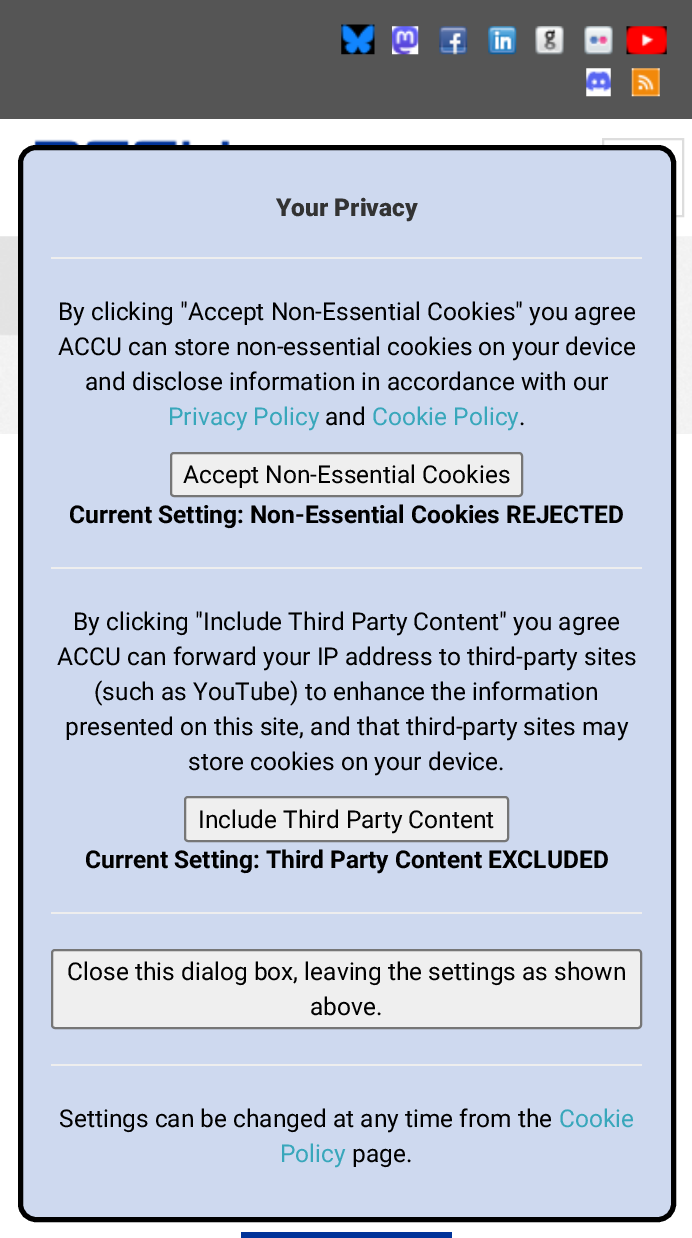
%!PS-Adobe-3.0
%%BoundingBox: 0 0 692 1238
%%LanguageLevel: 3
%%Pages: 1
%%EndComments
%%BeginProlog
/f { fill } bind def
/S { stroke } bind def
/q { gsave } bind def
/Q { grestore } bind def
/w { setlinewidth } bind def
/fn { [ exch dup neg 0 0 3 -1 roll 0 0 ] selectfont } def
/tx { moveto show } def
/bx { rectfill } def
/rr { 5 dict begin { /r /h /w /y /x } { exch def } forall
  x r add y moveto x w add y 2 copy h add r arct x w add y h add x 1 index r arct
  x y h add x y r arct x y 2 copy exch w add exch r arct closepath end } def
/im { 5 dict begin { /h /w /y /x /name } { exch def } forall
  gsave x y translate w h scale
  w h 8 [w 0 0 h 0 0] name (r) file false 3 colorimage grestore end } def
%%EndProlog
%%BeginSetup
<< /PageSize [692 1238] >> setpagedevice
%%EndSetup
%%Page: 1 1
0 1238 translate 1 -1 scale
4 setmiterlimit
1 setgray
0 0 692 1238 bx
0.333 setgray
0 0 692 119 bx
(image0.raw) 341 24 34 31 im
(image1.raw) 392 26 27 29 im
(image2.raw) 439 26 29 29 im
(image3.raw) 488 26 29 29 im
(image4.raw) 535 26 29 29 im
(image5.raw) 584 26 29 29 im
(image6.raw) 626 26 41 29 im
(image7.raw) 586 68 25 29 im
(image8.raw) 631 68 29 29 im
(image9.raw) 34 139 196 7 im
0.867 setgray
2 w
603 139 80 77 rectstroke
(image10.raw) 0 236 692 198 im
0 0.2 0.6 setrgbcolor
241 1232 211 6 bx
0.808 0.851 0.937 setrgbcolor
20.5 147.5 653 1072 15.5 rr q f Q
0 setgray
5 w
S
/Roboto-Black 24.5 fn
0.2 setgray
(Your Privacy) 276 216 tx
0.933 setgray
51 257 591 2 bx
/Roboto-Regular 24.5 fn
0 setgray
(By clicking "Accept Non-Essential Cookies" you agree) 58 320 tx
(ACCU can store non-essential cookies on your device) 58 355 tx
(and disclose information in accordance with our) 85 390 tx
0.22 0.655 0.733 setrgbcolor
(Privacy Policy) 168 425 tx
0 setgray
(and) 325 425 tx
0.22 0.655 0.733 setrgbcolor
(Cookie Policy) 372 425 tx
0 setgray
(.) 519 425 tx
0.937 setgray
171 453 351 43 3 rr q f Q
0.463 setgray
2 w
S
0 setgray
(Accept Non-Essential Cookies) 183 483 tx
/Roboto-Bold 24.5 fn
(Current Setting: Non-Essential Cookies REJECTED) 69 523 tx
0.933 setgray
51 567 591 2 bx
/Roboto-Regular 24.5 fn
0 setgray
(By clicking "Include Third Party Content" you agree) 73 630 tx
(ACCU can forward your IP address to third-party sites) 57 665 tx
(\(such as YouTube\) to enhance the information) 94 700 tx
(presented on this site, and that third-party sites may) 65 735 tx
(store cookies on your device.) 188 770 tx
0.937 setgray
185 797 323 44 3 rr q f Q
0.463 setgray
S
0 setgray
(Include Third Party Content) 198 828 tx
/Roboto-Bold 24.5 fn
(Current Setting: Third Party Content EXCLUDED) 85 868 tx
0.933 setgray
51 912 591 2 bx
0.937 setgray
52 950 589 78 3 rr q f Q
0.463 setgray
S
/Roboto-Regular 24.5 fn
0 setgray
(Close this dialog box, leaving the settings as shown) 67 980 tx
(above.) 310 1015 tx
0.933 setgray
51 1064 591 2 bx
0 setgray
(Settings can be changed at any time from the) 59 1127 tx
0.22 0.655 0.733 setrgbcolor
(Cookie) 559 1127 tx
(Policy) 280 1162 tx
0 setgray
(page.) 352 1162 tx
showpage
%%EOF
